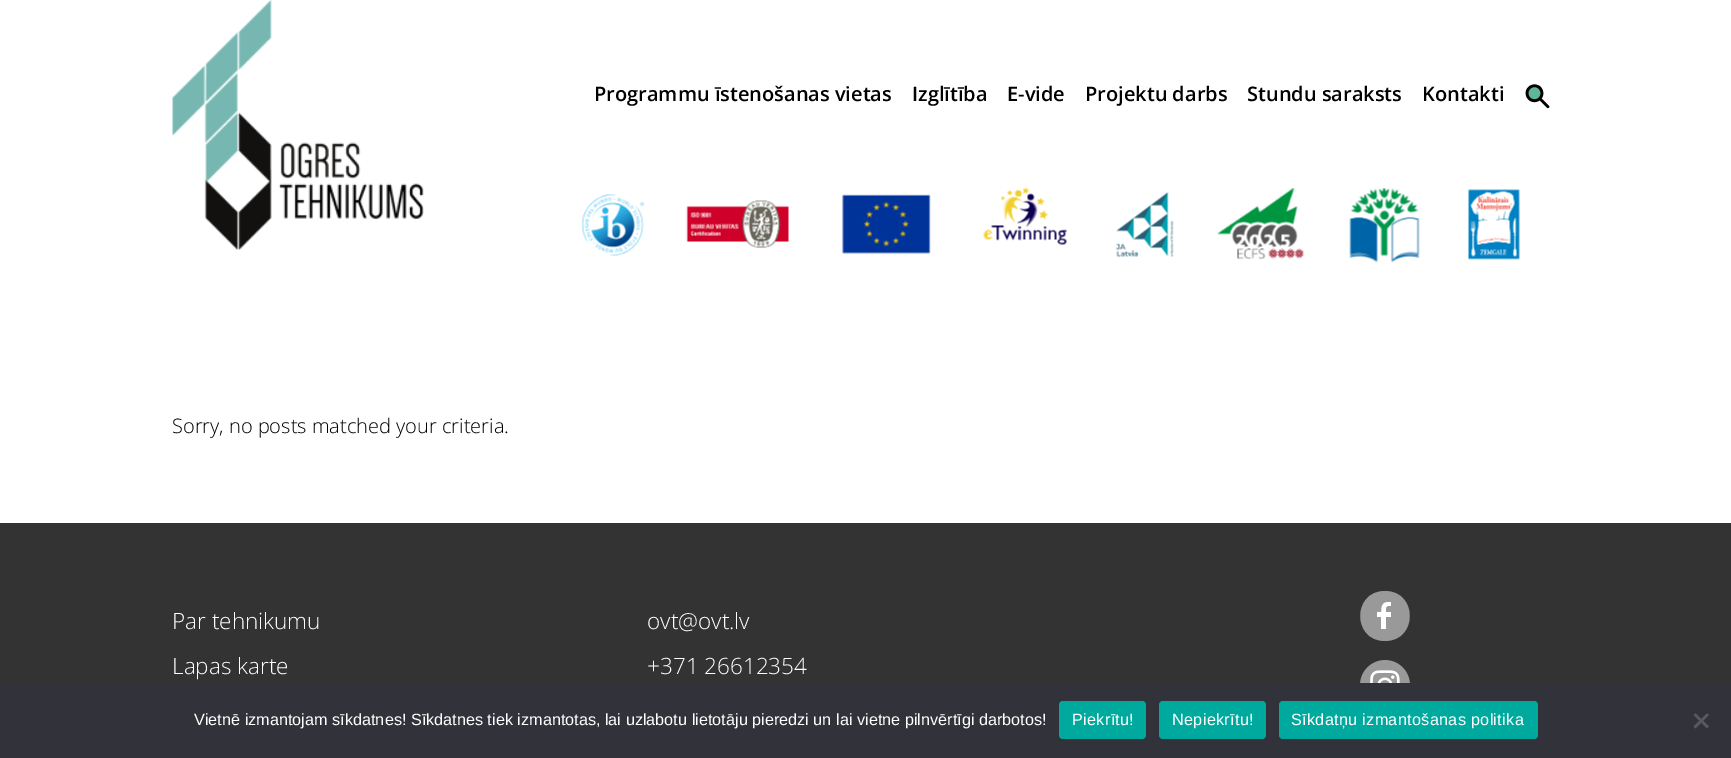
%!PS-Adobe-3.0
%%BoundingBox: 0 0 1731 758
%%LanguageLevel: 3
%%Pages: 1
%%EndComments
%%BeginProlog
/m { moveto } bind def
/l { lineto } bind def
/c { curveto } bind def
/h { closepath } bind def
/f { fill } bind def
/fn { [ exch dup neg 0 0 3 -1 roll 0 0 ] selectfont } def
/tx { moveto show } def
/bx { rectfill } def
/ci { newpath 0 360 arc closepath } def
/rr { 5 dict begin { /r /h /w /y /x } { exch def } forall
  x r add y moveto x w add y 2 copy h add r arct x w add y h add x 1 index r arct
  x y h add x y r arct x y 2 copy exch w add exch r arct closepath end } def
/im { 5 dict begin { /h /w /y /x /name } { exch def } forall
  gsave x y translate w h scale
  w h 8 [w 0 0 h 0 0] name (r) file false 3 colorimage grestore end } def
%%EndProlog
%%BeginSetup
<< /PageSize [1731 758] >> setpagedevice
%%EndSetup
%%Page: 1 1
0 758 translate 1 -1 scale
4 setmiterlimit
1 setgray
0 0 1731 758 bx
(image0.raw) 172 0 252 250 im
/OpenSans-SemiBold 20 fn
0 setgray
(Programmu īstenošanas vietas) 594 101 tx
(Izglītība) 912 101 tx
(E-vide) 1007 101 tx
(Projektu darbs) 1085 101 tx
(Stundu saraksts) 1247 101 tx
(Kontakti) 1422 101 tx
(image1.raw) 1525 84 25 25 im
(image2.raw) 581 194 64 62 im
(image3.raw) 686 200 103 49 im
(image4.raw) 841 194 90 60 im
(image5.raw) 982 188 85 57 im
(image6.raw) 1116 192 58 65 im
(image7.raw) 1217 188 88 72 im
(image8.raw) 1349 188 71 75 im
(image9.raw) 1468 189 52 71 im
/OpenSans-Light 20 fn
(Sorry, no posts matched your criteria.) 172 433 tx
0.2 setgray
0 523 1731 160 bx
/OpenSans-Light 22.5 fn
1 setgray
(Par tehnikumu) 172 629 tx
(Lapas karte) 172 674 tx
(ovt@ovt.lv) 647 629 tx
(+371 26612354) 647 674 tx
1385 616 22.5 ci f
0.6 setgray
1385 591 m 1352 591 1352 641 1385 641 c 1418 641 1418 591 1385 591 c h 1391 606 m 1386 606 1386 607 1386 612 c 1391 612 l 1391 617 l 1386 617 l 1386 629 l 1381 629 l 1381 617 l 1377 617 l 1377 612 l 1381 612 l 1381 604 1383 601 1391 602 c h f
(image10.raw) 1360 660 50 23 im
0.196 0.196 0.227 setrgbcolor
0 683 1731 75 bx
/LiberationSans-Regular 16.25 fn
1 setgray
(Vietnē izmantojam sīkdatnes! Sīkdatnes tiek izmantotas, lai uzlabotu lietotāju pieredzi un lai vietne pilnvērtīgi darbotos!) 194 725 tx
0 0.663 0.616 setrgbcolor
1059 701 87 38 4 rr f
1 setgray
1072 725 m 0.3 0 (Piekrītu!) ashow
0 0.663 0.616 setrgbcolor
1159 701 107 38 4 rr f
1 setgray
1172 725 m 0.3 0 (Nepiekrītu!) ashow
0 0.663 0.616 setrgbcolor
1279 701 259 38 4 rr f
1 setgray
1291 725 m 0.3 0 (Sīkdatņu izmantošanas politika) ashow
0.349 0.349 0.365 setrgbcolor
1707 713.5 m 1709 715 l 1695.5 728.5 l 1693.5 726.5 l h f
1693.5 715 m 1695.5 713.5 l 1709 726.5 l 1707 728.5 l h f
showpage
%%EOF
